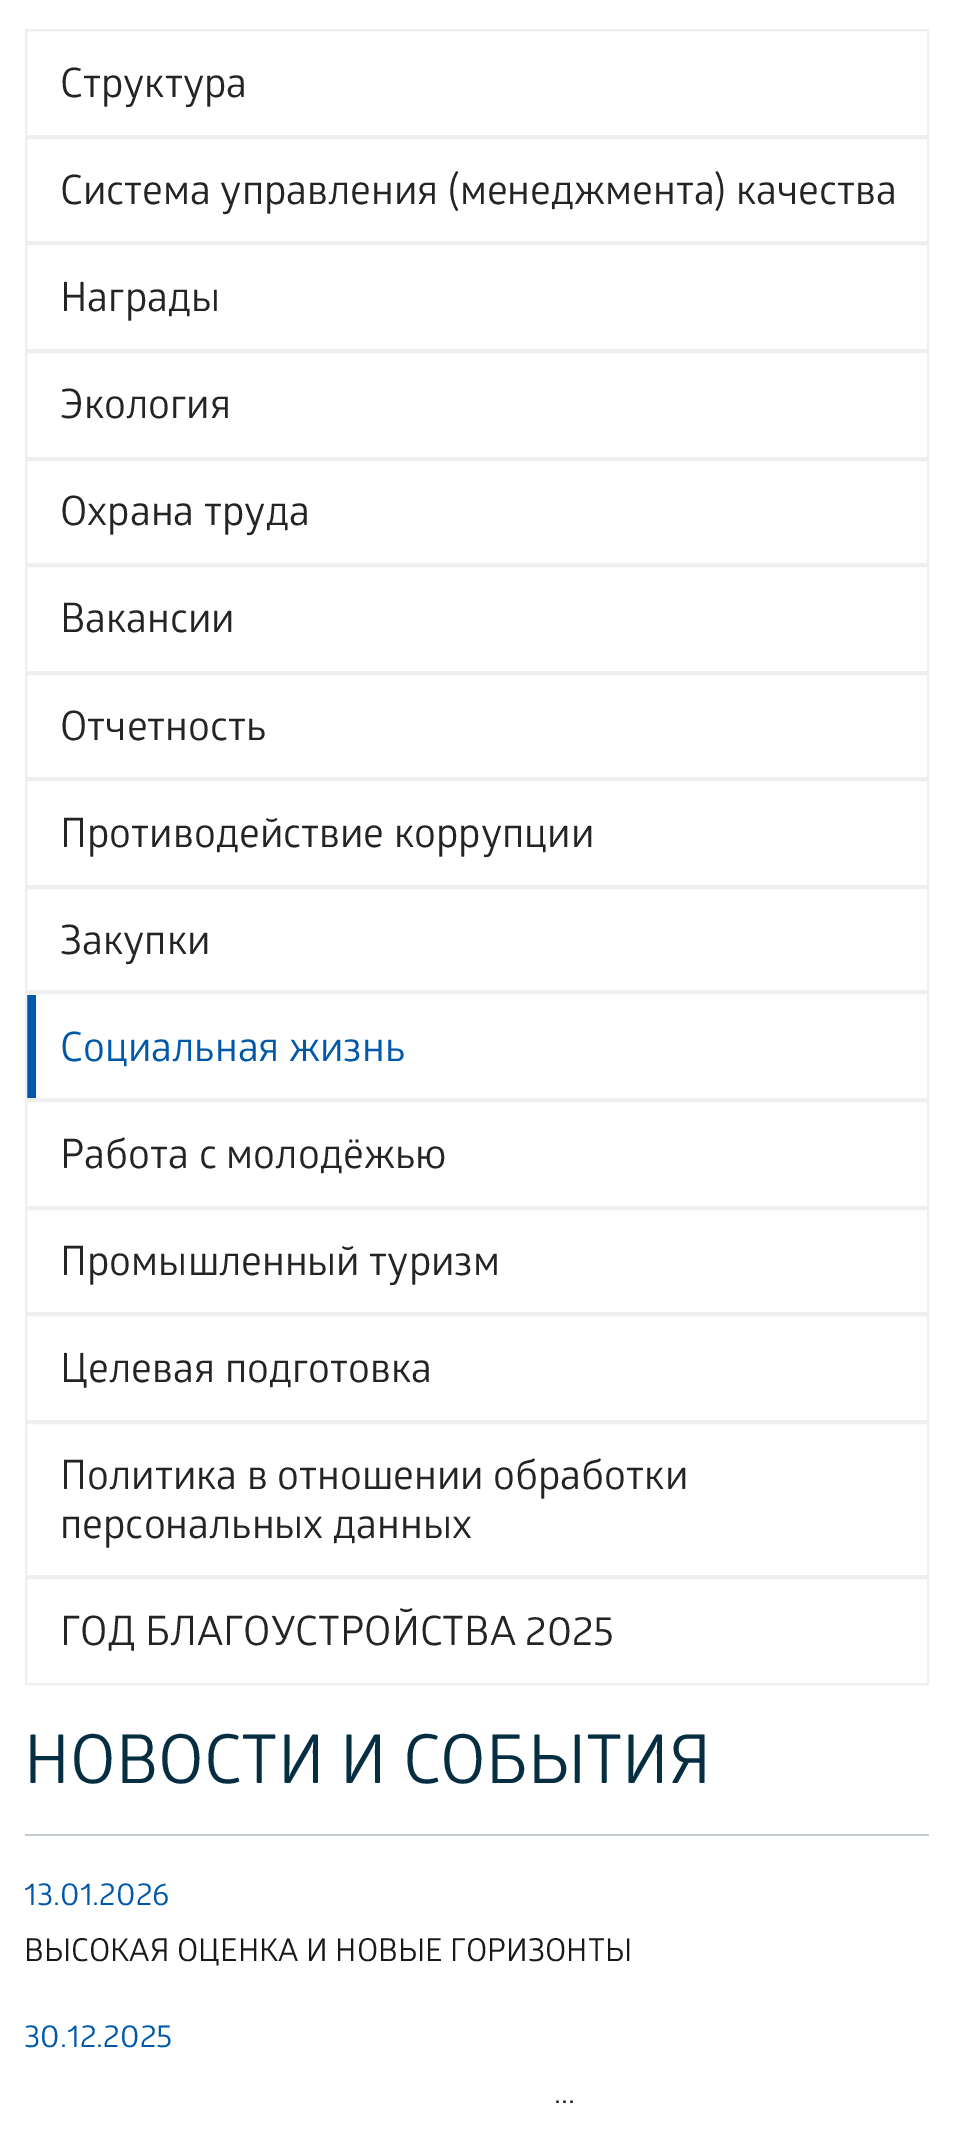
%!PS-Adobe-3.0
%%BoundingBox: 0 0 954 2135
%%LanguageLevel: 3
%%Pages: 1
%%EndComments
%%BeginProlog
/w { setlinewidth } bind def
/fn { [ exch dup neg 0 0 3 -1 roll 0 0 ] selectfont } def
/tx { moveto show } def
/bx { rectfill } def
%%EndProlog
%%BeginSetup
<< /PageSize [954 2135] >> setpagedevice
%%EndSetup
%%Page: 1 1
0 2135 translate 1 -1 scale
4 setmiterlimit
1 setgray
0 0 954 2135 bx
0.937 setgray
2 w
26 30 902 106 rectstroke
/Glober-Regular 40.5 fn
0.141 setgray
(Структура) 60 97 tx
0.937 setgray
26 138 902 104 rectstroke
0.141 setgray
(Система управления \(менеджмента\) качества) 60 204 tx
0.937 setgray
26 244 902 106 rectstroke
0.141 setgray
(Награды) 60 311 tx
0.937 setgray
26 352 902 106 rectstroke
0.141 setgray
(Экология) 60 418 tx
0.937 setgray
26 460 902 104 rectstroke
0.141 setgray
(Охрана труда) 60 525 tx
0.937 setgray
26 566 902 106 rectstroke
0.141 setgray
(Вакансии) 60 632 tx
0.937 setgray
26 674 902 104 rectstroke
0.141 setgray
(Отчетность) 60 740 tx
0.937 setgray
26 780 902 106 rectstroke
0.141 setgray
(Противодействие коррупции) 60 847 tx
0.937 setgray
26 888 902 103 rectstroke
0.141 setgray
(Закупки) 60 954 tx
0 0.345 0.667 setrgbcolor
27 995 9 103 bx
0.937 setgray
26 993 902 106 rectstroke
0 0.345 0.667 setrgbcolor
(Социальная жизнь) 60 1061 tx
0.937 setgray
26 1101 902 106 rectstroke
0.141 setgray
(Работа с молодёжью) 60 1168 tx
0.937 setgray
26 1209 902 104 rectstroke
0.141 setgray
(Промышленный туризм) 60 1275 tx
0.937 setgray
26 1315 902 106 rectstroke
0.141 setgray
(Целевая подготовка) 60 1382 tx
0.937 setgray
26 1423 902 153 rectstroke
0.141 setgray
(Политика в отношении обработки) 60 1489 tx
(персональных данных) 60 1538 tx
0.937 setgray
26 1578 902 106 rectstroke
0.141 setgray
(ГОД БЛАГОУСТРОЙСТВА 2025) 60 1645 tx
0.753 0.792 0.812 setrgbcolor
25 1834 904 2 bx
/Glober-Regular 67.5 fn
0.024 0.18 0.259 setrgbcolor
(НОВОСТИ И СОБЫТИЯ) 24 1783 tx
/Glober-Regular 31.5 fn
0 0.345 0.667 setrgbcolor
(13.01.2026) 24 1905 tx
0.098 setgray
(ВЫСОКАЯ ОЦЕНКА И НОВЫЕ ГОРИЗОНТЫ) 24 1961 tx
0 0.345 0.667 setrgbcolor
(30.12.2025) 24 2047 tx
0.098 setgray
(...) 554 2103 tx
showpage
%%EOF
